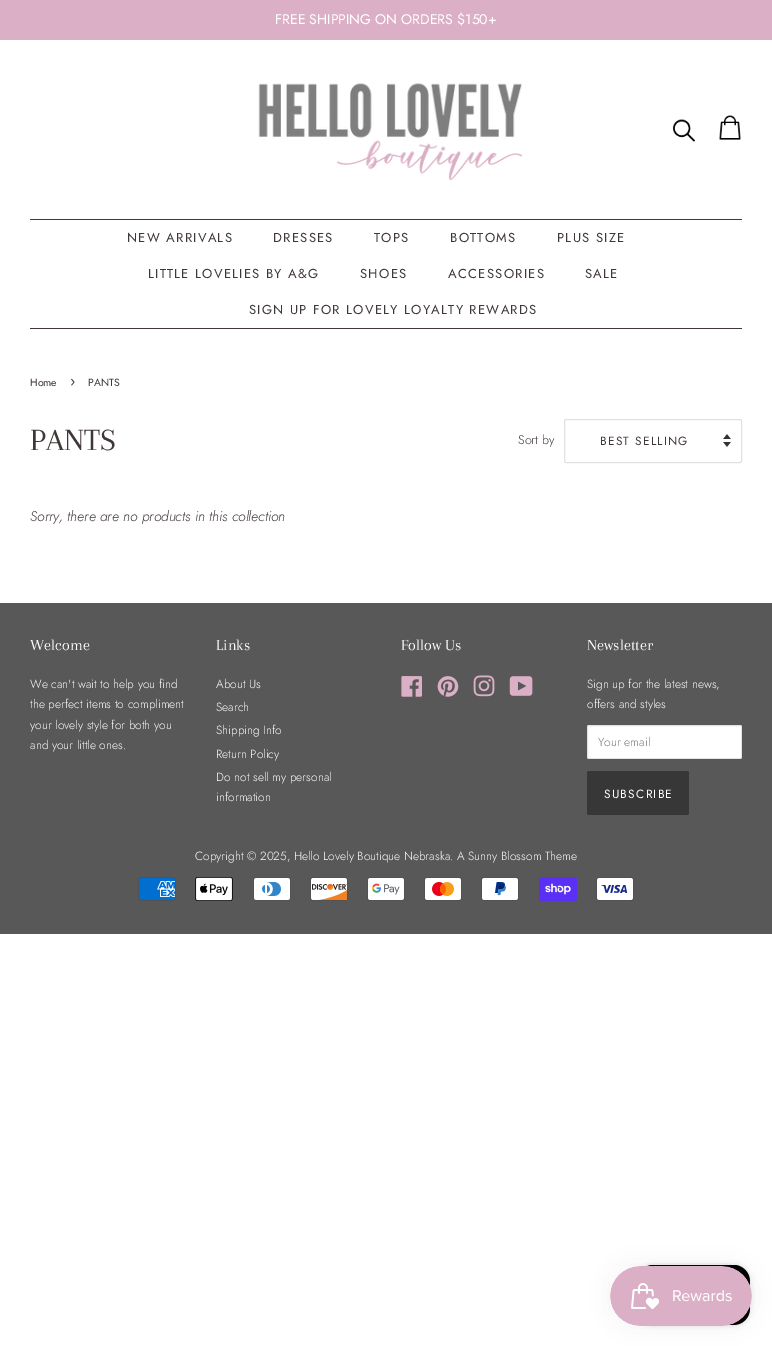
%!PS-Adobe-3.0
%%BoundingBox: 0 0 772 1346
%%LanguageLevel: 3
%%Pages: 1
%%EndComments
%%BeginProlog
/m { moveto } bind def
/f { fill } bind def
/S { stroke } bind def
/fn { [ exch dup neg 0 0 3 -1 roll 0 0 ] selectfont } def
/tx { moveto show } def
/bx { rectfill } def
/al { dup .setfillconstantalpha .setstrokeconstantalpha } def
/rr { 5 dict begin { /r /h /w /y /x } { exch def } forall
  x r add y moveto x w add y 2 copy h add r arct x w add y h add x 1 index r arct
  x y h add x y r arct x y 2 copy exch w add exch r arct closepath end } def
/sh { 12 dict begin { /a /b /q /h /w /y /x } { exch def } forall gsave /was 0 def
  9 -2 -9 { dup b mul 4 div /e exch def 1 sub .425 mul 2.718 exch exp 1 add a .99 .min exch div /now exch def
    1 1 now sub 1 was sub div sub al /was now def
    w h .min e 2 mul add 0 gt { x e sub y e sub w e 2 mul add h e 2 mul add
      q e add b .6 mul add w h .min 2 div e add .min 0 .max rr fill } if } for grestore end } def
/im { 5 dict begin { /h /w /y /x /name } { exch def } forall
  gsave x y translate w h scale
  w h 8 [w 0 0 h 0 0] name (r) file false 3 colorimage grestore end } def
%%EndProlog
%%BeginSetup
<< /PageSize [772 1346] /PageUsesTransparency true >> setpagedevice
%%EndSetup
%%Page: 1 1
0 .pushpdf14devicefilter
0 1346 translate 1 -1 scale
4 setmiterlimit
1 setgray
0 0 772 1346 bx
0.859 0.686 0.773 setrgbcolor
0 0 772 40 bx
/Jost-Regular 14 fn
1 setgray
(FREE SHIPPING ON ORDERS $150+) 275 24 tx
(image0.raw) 258 83 265 98 im
(image1.raw) 673 119 22 23 im
(image2.raw) 719 115 22 25 im
0.251 0.216 0.216 setrgbcolor
30 219 712 1 bx
30 328 712 1 bx
/Jost-Regular 13 fn
127 242 m 1.3 0 (NEW ARRIVALS) ashow
273 242 m 1.3 0 (DRESSES) ashow
374 242 m 1.3 0 (TOPS) ashow
450 242 m 1.3 0 (BOTTOMS) ashow
557 242 m 1.3 0 (PLUS SIZE) ashow
148 278 m 1.3 0 (LITTLE LOVELIES BY A&G) ashow
360 278 m 1.3 0 (SHOES) ashow
448 278 m 1.3 0 (ACCESSORIES) ashow
585 278 m 1.3 0 (SALE) ashow
249 314 m 1.3 0 (SIGN UP FOR LOVELY LOYALTY REWARDS) ashow
/Jost-Regular 10.5 fn
(Home) 30 386 tx
/Jost-Regular 15 fn
(›) 70 386 tx
/Jost-Regular 10.5 fn
(PANTS) 88 386 tx
/Arapey-Regular 32 fn
(PANTS) 30 450 tx
/Jost-Light 12.5 fn
(Sort by) 518 444 tx
(image3.raw) 723 434 8 13 im
0.886 0.882 0.882 setrgbcolor
564.5 419.5 177 43 1.5 rr S
/Jost-Regular 11.9 fn
0.251 0.216 0.216 setrgbcolor
600 445 m 1.25 0 (BEST SELLING) ashow
/Jost-LightItalic 14 fn
(Sorry, there are no products in this collection) 30 521 tx
0.345 setgray
0 603 772 331 bx
/Arapey-Regular 16 fn
1 setgray
(Welcome) 30 650 tx
/Jost-Light 11.9 fn
(We can't wait to help you find) 30 688 tx
(the perfect items to compliment) 30 708 tx
(your lovely style for both you) 30 729 tx
(and your little ones.) 30 749 tx
/Arapey-Regular 16 fn
(Links) 216 650 tx
/Jost-Light 11.9 fn
(About Us) 216 688 tx
(Search) 216 711 tx
(Shipping Info) 216 734 tx
(Return Policy) 216 758 tx
(Do not sell my personal) 216 781 tx
(information) 216 801 tx
/Arapey-Regular 16 fn
(Follow Us) 401 650 tx
(image4.raw) 401 676 21 21 im
(image5.raw) 437 676 22 21 im
(image6.raw) 473 675 22 22 im
(image7.raw) 509 676 24 20 im
(Newsletter) 587 650 tx
/Jost-Light 11.9 fn
(Sign up for the latest news,) 587 688 tx
(offers and styles) 587 708 tx
587 725 155 34 2 rr f
0.15 al
0.251 0.216 0.216 setrgbcolor
587.5 725.5 154 33 1.5 rr S
1 al
0.459 setgray
(Your email) 598 746 tx
0.216 setgray
587 771 102 44 2 rr f
/Jost-Regular 11.9 fn
1 setgray
604 798 m 1.25 0 (SUBSCRIBE) ashow
/Jost-Light 11.9 fn
(Copyright © 2025, Hello Lovely Boutique Nebraska. A Sunny Blossom Theme) 195 860 tx
(image8.raw) 138 877 38 24 im
(image9.raw) 195 877 38 24 im
(image10.raw) 253 877 38 24 im
(image11.raw) 310 877 38 24 im
(image12.raw) 367 877 38 24 im
(image13.raw) 424 877 38 24 im
(image14.raw) 481 877 38 24 im
(image15.raw) 539 877 38 24 im
(image16.raw) 596 877 38 24 im
0 setgray
637 1265 113 60 16 2.5 0.15 sh
637 1265 113 60 16 rr f
610 1266 142 60 30 12.5 0.05 sh
(image17.raw) 610 1266 142 60 im
.poppdf14devicefilter showpage
%%EOF
